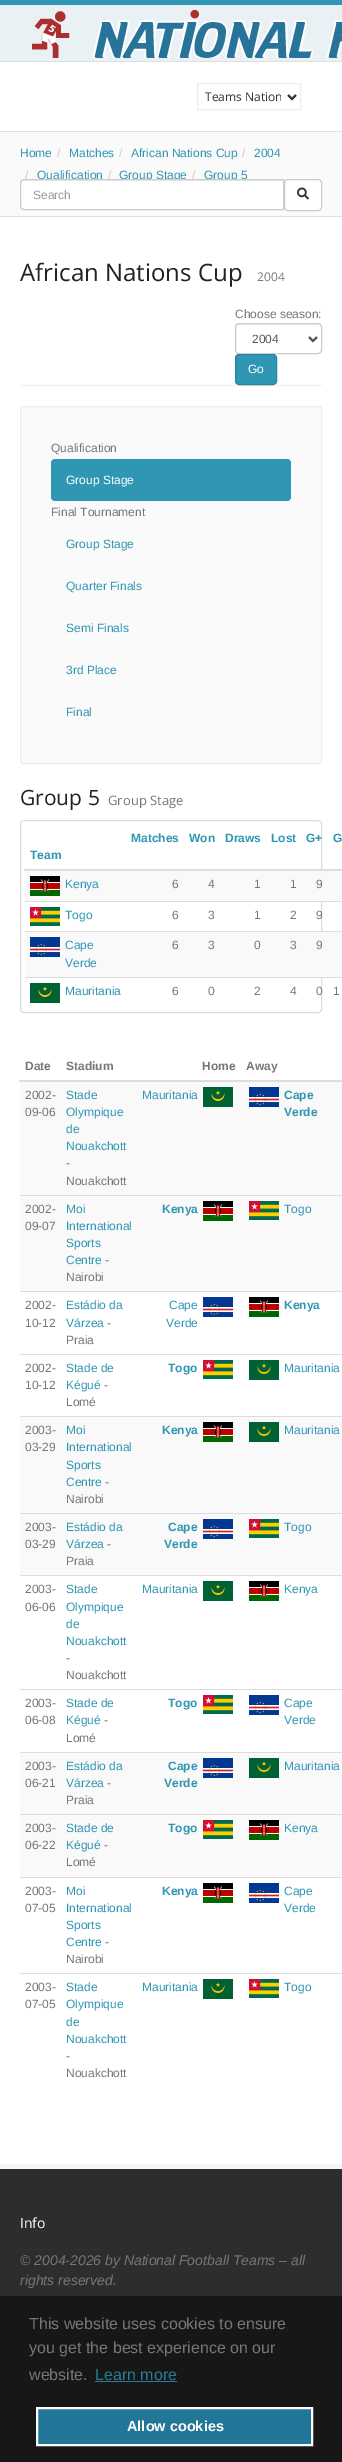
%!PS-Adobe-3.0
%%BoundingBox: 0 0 342 2462
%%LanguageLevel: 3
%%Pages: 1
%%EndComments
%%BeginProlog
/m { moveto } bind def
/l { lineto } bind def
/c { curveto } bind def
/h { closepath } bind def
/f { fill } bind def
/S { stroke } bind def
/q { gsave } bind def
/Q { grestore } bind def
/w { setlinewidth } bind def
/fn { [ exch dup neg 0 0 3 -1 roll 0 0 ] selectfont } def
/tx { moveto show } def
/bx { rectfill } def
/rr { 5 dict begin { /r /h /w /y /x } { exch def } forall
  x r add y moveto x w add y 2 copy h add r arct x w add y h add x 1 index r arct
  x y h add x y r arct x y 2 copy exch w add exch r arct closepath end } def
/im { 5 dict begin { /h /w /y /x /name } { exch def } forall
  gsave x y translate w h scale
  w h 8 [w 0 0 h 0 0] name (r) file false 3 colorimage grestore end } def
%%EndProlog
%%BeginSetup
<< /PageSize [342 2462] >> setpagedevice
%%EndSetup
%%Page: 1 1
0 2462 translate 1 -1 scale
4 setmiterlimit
1 setgray
0 0 342 2462 bx
0.98 setgray
0 132 342 84 bx
0.878 setgray
0 216 342 1 bx
0.184 0.588 0.706 setrgbcolor
0 0 342 5 bx
0.878 setgray
0 131 342 1 bx
0.914 0.945 0.961 setrgbcolor
0 5 342 56 bx
0.878 setgray
0 61 342 1 bx
(image0.raw) 32 10 310 48 im
0.933 setgray
197.5 83.5 103 26 rectstroke
0.2 setgray
2 w
288 95 m 292 99 l 296 95 l S
q
205 87 76 19 rectclip
/OpenSans-Regular 12 fn
(Teams Nation) 205 101 tx
Q
/LiberationSans-Regular 12 fn
0.184 0.588 0.706 setrgbcolor
(Home) 20 157 tx
0.8 setgray
(/) 57 157 tx
0.184 0.588 0.706 setrgbcolor
(Matches) 69 157 tx
0.8 setgray
(/) 119 157 tx
0.184 0.588 0.706 setrgbcolor
(African Nations Cup) 131 157 tx
0.8 setgray
(/) 242 157 tx
0.184 0.588 0.706 setrgbcolor
(2004) 254 157 tx
0.8 setgray
(/) 25 179 tx
0.184 0.588 0.706 setrgbcolor
(Qualification) 37 179 tx
0.8 setgray
(/) 108 179 tx
0.184 0.588 0.706 setrgbcolor
(Group Stage) 119 179 tx
0.8 setgray
(/) 192 179 tx
0.184 0.588 0.706 setrgbcolor
(Group 5) 204 179 tx
1 setgray
24 179 m 284 179 l 284 210 l 24 210 l 22 210 20 208 20 206 c 20 183 l 20 181 22 179 24 179 c h f
0.925 setgray
24 181 m 283 181 l 283 180 l 24 180 l 22 180 21 181 21 183 c 21 184 l 21 182 22 181 24 181 c h f
0.8 setgray
1 w
24 179.5 m 283.5 179.5 l 283.5 209.5 l 24 209.5 l 22 209.5 20.5 208 20.5 206 c 20.5 183 l 20.5 181 22 179.5 24 179.5 c h S
0.6 setgray
(Search) 33 199 tx
1 setgray
284.5 179.5 37 31 3.5 rr q f Q
0.8 setgray
S
(image1.raw) 297 187 12 13 im
0.961 setgray
0 2164 342 5 bx
0.933 setgray
20 385 302 1 bx
/OpenSans-Regular 24 fn
0.133 setgray
(African Nations Cup) 20 281 tx
/OpenSans-Regular 12 fn
0.467 setgray
(2004) 257 281 tx
/LiberationSans-Regular 12 fn
(Choose season:) 235 318 tx
0.925 setgray
239 325 m 318 325 l 320 325 321 326 321 328 c 321 321 309 324 305 324 c 252 324 l 248 324 236 321 236 328 c 236 326 237 325 239 325 c h f
0.8 setgray
235.5 323.5 86 30 3.5 rr S
0.333 setgray
2 w
309 337 m 313 341 l 317 337 l S
(2004) 252 343 tx
0.184 0.588 0.706 setrgbcolor
235.5 354.5 41 30 3.5 rr q f Q
0.165 0.522 0.627 setrgbcolor
1 w
S
1 setgray
(Go) 248 373 tx
0.98 setgray
20.5 406.5 301 357 2.5 rr q f Q
0.933 setgray
S
0.467 setgray
(Qualification) 51 452 tx
0.184 0.588 0.706 setrgbcolor
51 459 240 42 4 rr f
1 setgray
(Group Stage) 66 484 tx
0.467 setgray
(Final Tournament) 51 516 tx
0.184 0.588 0.706 setrgbcolor
(Group Stage) 66 548 tx
(Quarter Finals) 66 590 tx
(Semi Finals) 66 632 tx
(3rd Place) 66 674 tx
(Final) 66 716 tx
/OpenSans-Regular 21 fn
0.133 setgray
(Group 5) 20 805 tx
/OpenSans-Regular 13 fn
0.467 setgray
(Group Stage) 108 805 tx
0.863 setgray
20.5 820.5 301 192 3.5 rr S
/LiberationSans-Bold 12 fn
0.184 0.588 0.706 setrgbcolor
(Matches) 131 842 tx
(Won) 189 842 tx
(Draws) 225 842 tx
(Lost) 271 842 tx
(G+) 306 842 tx
0.867 setgray
24 869 318 2 bx
0.184 0.588 0.706 setrgbcolor
(G) 333 842 tx
(Team) 30 859 tx
0.976 setgray
25 871 317 30 bx
(image2.raw) 30 876 30 20 im
/LiberationSans-Regular 12 fn
0.184 0.588 0.706 setrgbcolor
(Kenya) 65 888 tx
0.467 setgray
(6) 172 888 tx
(4) 208 888 tx
(1) 254 888 tx
(1) 290 888 tx
(9) 316 888 tx
0.867 setgray
25 901 317 1 bx
(image3.raw) 30 907 30 19 im
0.184 0.588 0.706 setrgbcolor
(Togo) 65 919 tx
0.467 setgray
(6) 172 919 tx
(3) 208 919 tx
(1) 254 919 tx
(2) 290 919 tx
(9) 316 919 tx
0.976 setgray
25 932 317 45 bx
0.867 setgray
25 931 317 1 bx
(image4.raw) 30 937 30 20 im
0.184 0.588 0.706 setrgbcolor
(Cape) 65 949 tx
(Verde) 65 967 tx
0.467 setgray
(6) 172 949 tx
(3) 208 949 tx
(0) 254 949 tx
(3) 290 949 tx
(9) 316 949 tx
(image5.raw) 30 983 30 20 im
0.184 0.588 0.706 setrgbcolor
(Mauritania) 65 995 tx
0.467 setgray
(6) 172 995 tx
(0) 208 995 tx
(2) 254 995 tx
(4) 290 995 tx
(0) 316 995 tx
0.867 setgray
25 977 317 1 bx
0.467 setgray
(1) 333 995 tx
/LiberationSans-Bold 12 fn
(Date) 25 1070 tx
(Stadium) 66 1070 tx
(Home) 202 1070 tx
0.867 setgray
19 1080 323 2 bx
0.467 setgray
(Away) 246 1070 tx
0.976 setgray
20 1082 322 113 bx
/LiberationSans-Regular 12 fn
0.467 setgray
(2002-) 25 1099 tx
(09-06) 25 1116 tx
0.184 0.588 0.706 setrgbcolor
(Stade) 66 1099 tx
(Olympique) 66 1116 tx
(de) 66 1133 tx
(Nouakchott) 66 1150 tx
0.467 setgray
(-) 66 1167 tx
(Nouakchott) 66 1185 tx
0.184 0.588 0.706 setrgbcolor
(Mauritania) 142 1099 tx
(image5.raw) 203 1087 30 20 im
(image4.raw) 249 1087 30 20 im
/LiberationSans-Bold 12 fn
(Cape) 284 1099 tx
(Verde) 284 1116 tx
0.976 setgray
20 1196 322 95 bx
/LiberationSans-Regular 12 fn
0.467 setgray
(2002-) 25 1213 tx
(09-07) 25 1230 tx
0.184 0.588 0.706 setrgbcolor
(Moi) 66 1213 tx
(International) 66 1230 tx
(Sports) 66 1247 tx
(Centre) 66 1264 tx
0.467 setgray
(-) 105 1264 tx
(Nairobi) 66 1281 tx
/LiberationSans-Bold 12 fn
0.184 0.588 0.706 setrgbcolor
(Kenya) 162 1213 tx
(image2.raw) 203 1201 30 20 im
(image3.raw) 249 1201 30 19 im
0.867 setgray
20 1195 322 1 bx
/LiberationSans-Regular 12 fn
0.184 0.588 0.706 setrgbcolor
(Togo) 284 1213 tx
0.467 setgray
(2002-) 25 1309 tx
(10-12) 25 1327 tx
0.184 0.588 0.706 setrgbcolor
(Estádio da) 66 1309 tx
(Várzea) 66 1327 tx
0.467 setgray
(-) 107 1327 tx
(Praia) 66 1344 tx
0.184 0.588 0.706 setrgbcolor
(Cape) 169 1309 tx
(Verde) 166 1327 tx
(image4.raw) 203 1297 30 20 im
(image2.raw) 249 1297 30 20 im
0.867 setgray
20 1291 322 1 bx
/LiberationSans-Bold 12 fn
0.184 0.588 0.706 setrgbcolor
(Kenya) 284 1309 tx
/LiberationSans-Regular 12 fn
0.467 setgray
(2002-) 25 1372 tx
(10-12) 25 1389 tx
0.184 0.588 0.706 setrgbcolor
(Stade de) 66 1372 tx
(Kégué) 66 1389 tx
0.467 setgray
(-) 104 1389 tx
(Lomé) 66 1406 tx
/LiberationSans-Bold 12 fn
0.184 0.588 0.706 setrgbcolor
(Togo) 168 1372 tx
(image3.raw) 203 1360 30 19 im
(image5.raw) 249 1360 30 20 im
0.867 setgray
20 1354 322 1 bx
/LiberationSans-Regular 12 fn
0.184 0.588 0.706 setrgbcolor
(Mauritania) 284 1372 tx
0.976 setgray
20 1417 322 96 bx
0.467 setgray
(2003-) 25 1434 tx
(03-29) 25 1451 tx
0.184 0.588 0.706 setrgbcolor
(Moi) 66 1434 tx
(International) 66 1451 tx
(Sports) 66 1469 tx
(Centre) 66 1486 tx
0.467 setgray
(-) 105 1486 tx
(Nairobi) 66 1503 tx
/LiberationSans-Bold 12 fn
0.184 0.588 0.706 setrgbcolor
(Kenya) 162 1434 tx
(image2.raw) 203 1422 30 20 im
(image5.raw) 249 1422 30 20 im
0.867 setgray
20 1416 322 1 bx
/LiberationSans-Regular 12 fn
0.184 0.588 0.706 setrgbcolor
(Mauritania) 284 1434 tx
0.976 setgray
20 1514 322 61 bx
0.467 setgray
(2003-) 25 1531 tx
(03-29) 25 1548 tx
0.184 0.588 0.706 setrgbcolor
(Estádio da) 66 1531 tx
(Várzea) 66 1548 tx
0.467 setgray
(-) 107 1548 tx
(Praia) 66 1565 tx
/LiberationSans-Bold 12 fn
0.184 0.588 0.706 setrgbcolor
(Cape) 168 1531 tx
(Verde) 164 1548 tx
(image4.raw) 203 1519 30 20 im
(image3.raw) 249 1519 30 19 im
0.867 setgray
20 1513 322 1 bx
/LiberationSans-Regular 12 fn
0.184 0.588 0.706 setrgbcolor
(Togo) 284 1531 tx
0.467 setgray
(2003-) 25 1593 tx
(06-06) 25 1611 tx
0.184 0.588 0.706 setrgbcolor
(Stade) 66 1593 tx
(Olympique) 66 1611 tx
(de) 66 1628 tx
(Nouakchott) 66 1645 tx
0.467 setgray
(-) 66 1662 tx
(Nouakchott) 66 1679 tx
0.184 0.588 0.706 setrgbcolor
(Mauritania) 142 1593 tx
(image5.raw) 203 1581 30 20 im
(image2.raw) 249 1581 30 20 im
0.867 setgray
20 1575 322 1 bx
0.184 0.588 0.706 setrgbcolor
(Kenya) 284 1593 tx
0.467 setgray
(2003-) 25 1707 tx
(06-08) 25 1724 tx
0.184 0.588 0.706 setrgbcolor
(Stade de) 66 1707 tx
(Kégué) 66 1724 tx
0.467 setgray
(-) 104 1724 tx
(Lomé) 66 1742 tx
/LiberationSans-Bold 12 fn
0.184 0.588 0.706 setrgbcolor
(Togo) 168 1707 tx
(image3.raw) 203 1695 30 19 im
(image4.raw) 249 1695 30 20 im
0.867 setgray
20 1689 322 1 bx
/LiberationSans-Regular 12 fn
0.184 0.588 0.706 setrgbcolor
(Cape) 284 1707 tx
(Verde) 284 1724 tx
0.976 setgray
20 1753 322 61 bx
0.467 setgray
(2003-) 25 1770 tx
(06-21) 25 1787 tx
0.184 0.588 0.706 setrgbcolor
(Estádio da) 66 1770 tx
(Várzea) 66 1787 tx
0.467 setgray
(-) 107 1787 tx
(Praia) 66 1804 tx
/LiberationSans-Bold 12 fn
0.184 0.588 0.706 setrgbcolor
(Cape) 168 1770 tx
(Verde) 164 1787 tx
(image4.raw) 203 1758 30 20 im
(image5.raw) 249 1758 30 20 im
0.867 setgray
20 1752 322 1 bx
/LiberationSans-Regular 12 fn
0.184 0.588 0.706 setrgbcolor
(Mauritania) 284 1770 tx
0.976 setgray
20 1815 322 62 bx
0.467 setgray
(2003-) 25 1832 tx
(06-22) 25 1849 tx
0.184 0.588 0.706 setrgbcolor
(Stade de) 66 1832 tx
(Kégué) 66 1849 tx
0.467 setgray
(-) 104 1849 tx
(Lomé) 66 1866 tx
/LiberationSans-Bold 12 fn
0.184 0.588 0.706 setrgbcolor
(Togo) 168 1832 tx
(image3.raw) 203 1820 30 19 im
(image2.raw) 249 1820 30 20 im
0.867 setgray
20 1814 322 1 bx
/LiberationSans-Regular 12 fn
0.184 0.588 0.706 setrgbcolor
(Kenya) 284 1832 tx
0.467 setgray
(2003-) 25 1895 tx
(07-05) 25 1912 tx
0.184 0.588 0.706 setrgbcolor
(Moi) 66 1895 tx
(International) 66 1912 tx
(Sports) 66 1929 tx
(Centre) 66 1946 tx
0.467 setgray
(-) 105 1946 tx
(Nairobi) 66 1963 tx
/LiberationSans-Bold 12 fn
0.184 0.588 0.706 setrgbcolor
(Kenya) 162 1895 tx
(image2.raw) 203 1883 30 20 im
(image4.raw) 249 1883 30 20 im
0.867 setgray
20 1877 322 1 bx
/LiberationSans-Regular 12 fn
0.184 0.588 0.706 setrgbcolor
(Cape) 284 1895 tx
(Verde) 284 1912 tx
0.467 setgray
(2003-) 25 1991 tx
(07-05) 25 2008 tx
0.184 0.588 0.706 setrgbcolor
(Stade) 66 1991 tx
(Olympique) 66 2008 tx
(de) 66 2026 tx
(Nouakchott) 66 2043 tx
0.467 setgray
(-) 66 2060 tx
(Nouakchott) 66 2077 tx
0.184 0.588 0.706 setrgbcolor
(Mauritania) 142 1991 tx
(image5.raw) 203 1979 30 20 im
(image3.raw) 249 1979 30 19 im
0.867 setgray
20 1973 322 1 bx
0.184 0.588 0.706 setrgbcolor
(Togo) 284 1991 tx
0.176 setgray
0 2169 342 127 bx
/OpenSans-Regular 14 fn
1 setgray
(Info) 20 2228 tx
/LiberationSans-Italic 14 fn
0.467 setgray
(© 2004-2026 by National Football Teams – all) 20 2265 tx
(rights reserved.) 20 2285 tx
0.09 setgray
0 2296 342 166 bx
/LiberationSans-Regular 16 fn
0.467 setgray
(This website uses cookies to ensure) 29 2329 tx
(you get the best experience on our) 29 2353 tx
(website.) 29 2380 tx
0.165 0.49 0.584 setrgbcolor
(Learn more) 95 2380 tx
95 2381 82 1 bx
0.133 0.467 0.6 setrgbcolor
37 2408 m 312 2408 l 312 2445 l 37 2445 l h q f Q
1 setgray
2 w
S
/LiberationSans-Bold 14.5 fn
(Allow cookies) 127 2431 tx
showpage
%%EOF
